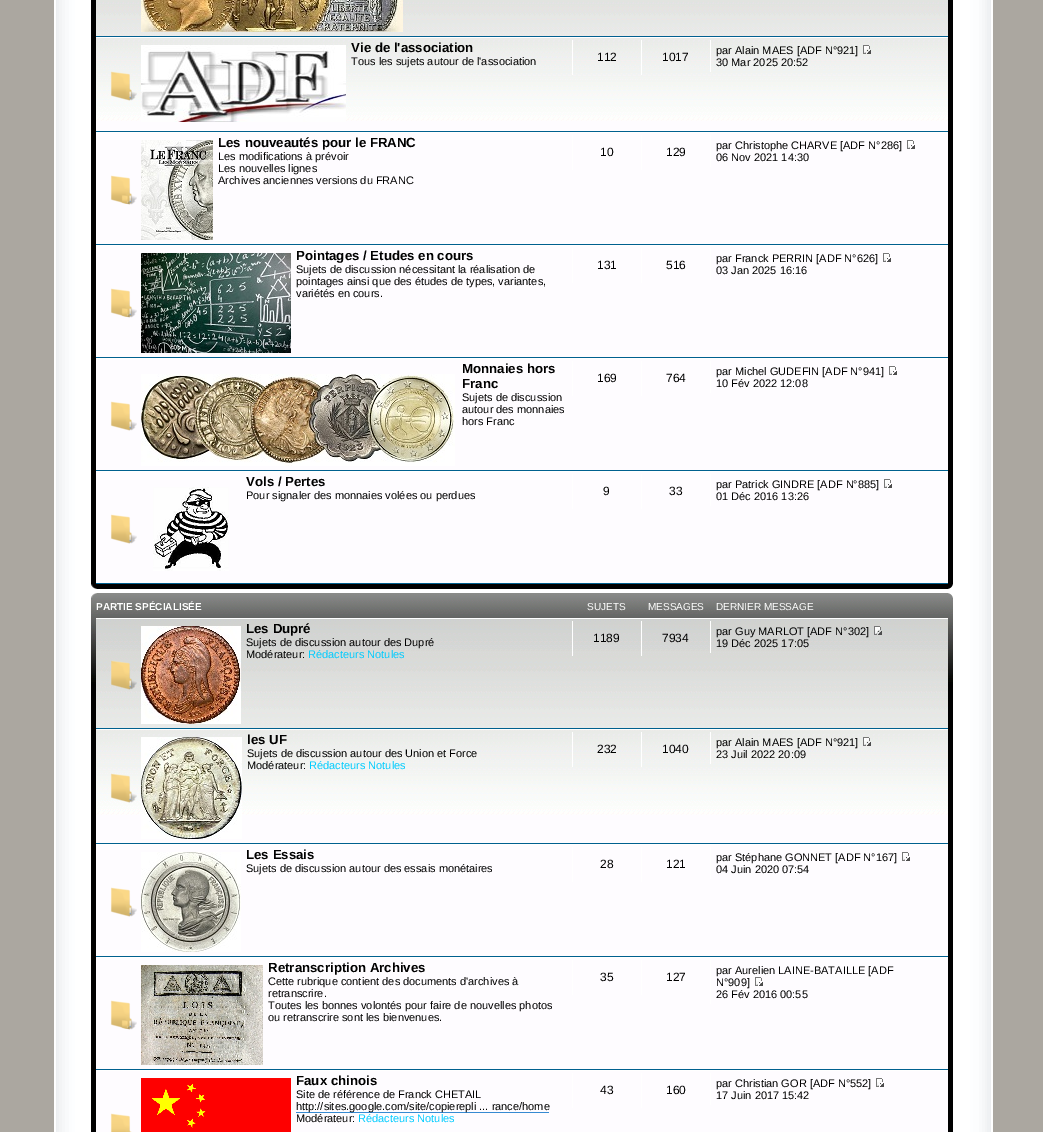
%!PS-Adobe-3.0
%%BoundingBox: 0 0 1043 1132
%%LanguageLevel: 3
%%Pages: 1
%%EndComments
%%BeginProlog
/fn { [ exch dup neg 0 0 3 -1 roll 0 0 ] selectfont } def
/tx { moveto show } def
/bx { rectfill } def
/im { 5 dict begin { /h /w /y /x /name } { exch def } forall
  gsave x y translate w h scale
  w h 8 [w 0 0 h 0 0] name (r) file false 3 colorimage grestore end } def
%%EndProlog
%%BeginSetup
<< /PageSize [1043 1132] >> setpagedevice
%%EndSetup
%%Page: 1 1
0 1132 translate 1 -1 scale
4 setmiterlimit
0.671 0.655 0.627 setrgbcolor
0 0 1043 1132 bx
(image0.raw) 54 0 939 1132 im
0 setgray
91 0 862 589 bx
0.996 0.988 1 setrgbcolor
96 121 852 462 bx
(image1.raw) 96 0 852 121 im
0 0.376 0.561 setrgbcolor
96 36 852 1 bx
(image2.raw) 141 0 262 32 im
1 setgray
96 37 852 1 bx
0 0.376 0.561 setrgbcolor
96 131 852 1 bx
(image3.raw) 110 71 27 30 im
(image4.raw) 141 45 205 77 im
/LiberationSans-Bold 13.25 fn
0 setgray
(Vie de l'association) 351 52 tx
/LiberationSans-Regular 11 fn
(Tous les sujets autour de l'association) 351 65 tx
1 setgray
572 40 1 35 bx
/LiberationSans-Regular 12 fn
0 setgray
(112) 597 61 tx
1 setgray
641 40 1 35 bx
0 setgray
(1017) 662 61 tx
1 setgray
710 40 1 32 bx
/LiberationSans-Regular 11 fn
0 setgray
(par Alain MAES [ADF N°921]) 716 54 tx
(image5.raw) 863 45 8 9 im
(30 Mar 2025 20:52) 716 66 tx
1 setgray
96 132 852 1 bx
0 0.376 0.561 setrgbcolor
96 244 852 1 bx
(image6.raw) 110 175 27 30 im
(image7.raw) 141 140 72 100 im
/LiberationSans-Bold 13.25 fn
0 setgray
(Les nouveautés pour le FRANC) 218 147 tx
/LiberationSans-Regular 11 fn
(Les modifications à prévoir) 218 160 tx
(Les nouvelles lignes) 218 172 tx
(Archives anciennes versions du FRANC) 218 184 tx
1 setgray
572 135 1 35 bx
/LiberationSans-Regular 12 fn
0 setgray
(10) 600 156 tx
1 setgray
641 135 1 35 bx
0 setgray
(129) 666 156 tx
1 setgray
710 135 1 32 bx
/LiberationSans-Regular 11 fn
0 setgray
(par Christophe CHARVE [ADF N°286]) 716 149 tx
(image8.raw) 907 140 8 9 im
(06 Nov 2021 14:30) 716 161 tx
1 setgray
96 245 852 1 bx
0 0.376 0.561 setrgbcolor
96 357 852 1 bx
(image6.raw) 110 288 27 30 im
(image9.raw) 141 253 150 100 im
/LiberationSans-Bold 13.25 fn
0 setgray
(Pointages / Etudes en cours) 296 260 tx
/LiberationSans-Regular 11 fn
(Sujets de discussion nécessitant la réalisation de) 296 273 tx
(pointages ainsi que des études de types, variantes,) 296 285 tx
(variétés en cours.) 296 297 tx
1 setgray
572 248 1 35 bx
/LiberationSans-Regular 12 fn
0 setgray
(131) 597 269 tx
1 setgray
641 248 1 35 bx
0 setgray
(516) 666 269 tx
1 setgray
710 248 1 32 bx
/LiberationSans-Regular 11 fn
0 setgray
(par Franck PERRIN [ADF N°626]) 716 262 tx
(image8.raw) 883 253 8 9 im
(03 Jan 2025 16:16) 716 274 tx
1 setgray
96 358 852 1 bx
0 0.376 0.561 setrgbcolor
96 470 852 1 bx
(image10.raw) 110 401 27 30 im
/LiberationSans-Bold 13.25 fn
0 setgray
(Monnaies hors) 462 373 tx
(image11.raw) 141 374 314 92 im
(Franc) 462 388 tx
/LiberationSans-Regular 11 fn
(Sujets de discussion) 462 401 tx
(autour des monnaies) 462 413 tx
(hors Franc) 462 425 tx
1 setgray
572 361 1 35 bx
/LiberationSans-Regular 12 fn
0 setgray
(169) 597 382 tx
1 setgray
641 361 1 35 bx
0 setgray
(764) 666 382 tx
1 setgray
710 361 1 32 bx
/LiberationSans-Regular 11 fn
0 setgray
(par Michel GUDEFIN [ADF N°941]) 716 375 tx
(image8.raw) 889 366 8 9 im
(10 Fév 2022 12:08) 716 387 tx
1 setgray
96 471 852 1 bx
0 0.376 0.561 setrgbcolor
96 583 852 1 bx
(image10.raw) 110 514 27 30 im
/LiberationSans-Bold 13.25 fn
0 setgray
(Vols / Pertes) 246 486 tx
(image12.raw) 153 487 76 84 im
/LiberationSans-Regular 11 fn
(Pour signaler des monnaies volées ou perdues) 246 499 tx
1 setgray
572 474 1 35 bx
/LiberationSans-Regular 12 fn
0 setgray
(9) 603 495 tx
1 setgray
641 474 1 35 bx
0 setgray
(33) 669 495 tx
1 setgray
710 474 1 32 bx
/LiberationSans-Regular 11 fn
0 setgray
(par Patrick GINDRE [ADF N°885]) 716 488 tx
(image8.raw) 884 479 8 9 im
(01 Déc 2016 13:26) 716 500 tx
(image13.raw) 91 584 6 5 im
(image14.raw) 948 584 5 5 im
91 684 862 448 bx
(image15.raw) 91 593 862 91 im
(image16.raw) 91 593 6 5 im
(image17.raw) 948 593 5 5 im
/LiberationSans-Bold 10 fn
1 setgray
(PARTIE SPÉCIALISÉE) 96 610 tx
/LiberationSans-Regular 10 fn
(SUJETS) 587 610 tx
(MESSAGES) 648 610 tx
(DERNIER MESSAGE) 716 610 tx
0.996 0.988 1 setrgbcolor
96 815 852 317 bx
(image18.raw) 96 619 852 196 im
1 setgray
96 618 852 1 bx
0 0.376 0.561 setrgbcolor
96 728 852 1 bx
(image19.raw) 111 660 26 30 im
(image20.raw) 141 626 100 98 im
/LiberationSans-Bold 13.25 fn
0 setgray
(Les Dupré) 246 633 tx
/LiberationSans-Regular 11 fn
(Sujets de discussion autour des Dupré) 246 646 tx
(Modérateur:) 246 658 tx
0 0.8 1 setrgbcolor
(Rédacteurs Notules) 308 658 tx
1 setgray
572 621 1 35 bx
/LiberationSans-Regular 12 fn
0 setgray
(1189) 593 642 tx
1 setgray
641 621 1 35 bx
0 setgray
(7934) 662 642 tx
1 setgray
710 621 1 32 bx
/LiberationSans-Regular 11 fn
0 setgray
(par Guy MARLOT [ADF N°302]) 716 635 tx
(image21.raw) 874 626 8 9 im
(19 Déc 2025 17:05) 716 647 tx
1 setgray
96 729 852 1 bx
0 0.376 0.561 setrgbcolor
96 843 852 1 bx
(image22.raw) 110 773 27 30 im
(image23.raw) 141 737 101 102 im
/LiberationSans-Bold 13.25 fn
0 setgray
(les UF) 247 744 tx
/LiberationSans-Regular 11 fn
(Sujets de discussion autour des Union et Force) 247 757 tx
(Modérateur:) 247 769 tx
0 0.8 1 setrgbcolor
(Rédacteurs Notules) 309 769 tx
1 setgray
572 732 1 35 bx
/LiberationSans-Regular 12 fn
0 setgray
(232) 597 753 tx
1 setgray
641 732 1 35 bx
0 setgray
(1040) 662 753 tx
1 setgray
710 732 1 32 bx
/LiberationSans-Regular 11 fn
0 setgray
(par Alain MAES [ADF N°921]) 716 746 tx
(image24.raw) 863 737 8 9 im
(23 Juil 2022 20:09) 716 758 tx
1 setgray
96 844 852 1 bx
0 0.376 0.561 setrgbcolor
96 956 852 1 bx
(image10.raw) 110 887 27 30 im
(image25.raw) 141 852 100 100 im
/LiberationSans-Bold 13.25 fn
0 setgray
(Les Essais) 246 859 tx
/LiberationSans-Regular 11 fn
(Sujets de discussion autour des essais monétaires) 246 872 tx
1 setgray
572 847 1 35 bx
/LiberationSans-Regular 12 fn
0 setgray
(28) 600 868 tx
1 setgray
641 847 1 35 bx
0 setgray
(121) 666 868 tx
1 setgray
710 847 1 32 bx
/LiberationSans-Regular 11 fn
0 setgray
(par Stéphane GONNET [ADF N°167]) 716 861 tx
(image8.raw) 902 852 8 9 im
(04 Juin 2020 07:54) 716 873 tx
1 setgray
96 957 852 1 bx
0 0.376 0.561 setrgbcolor
96 1069 852 1 bx
(image6.raw) 110 1000 27 30 im
(image26.raw) 141 965 122 100 im
/LiberationSans-Bold 13.25 fn
0 setgray
(Retranscription Archives) 268 972 tx
/LiberationSans-Regular 11 fn
(Cette rubrique contient des documents d'archives à) 268 985 tx
(retranscrire.) 268 997 tx
(Toutes les bonnes volontés pour faire de nouvelles photos) 268 1009 tx
(ou retranscrire sont les bienvenues.) 268 1021 tx
1 setgray
572 960 1 35 bx
/LiberationSans-Regular 12 fn
0 setgray
(35) 600 981 tx
1 setgray
641 960 1 35 bx
0 setgray
(127) 666 981 tx
1 setgray
710 960 1 44 bx
/LiberationSans-Regular 11 fn
0 setgray
(par Aurelien LAINE-BATAILLE [ADF) 716 974 tx
(N°909]) 716 986 tx
(image8.raw) 755 977 8 9 im
(26 Fév 2016 00:55) 716 998 tx
1 setgray
96 1070 852 1 bx
(image27.raw) 110 1113 22 19 im
(image28.raw) 141 1078 150 54 im
/LiberationSans-Bold 13.25 fn
0 setgray
(Faux chinois) 296 1085 tx
/LiberationSans-Regular 11 fn
(Site de référence de Franck CHETAIL) 296 1098 tx
0.212 0.541 0.824 setrgbcolor
296 1112 253 1 bx
0 setgray
(http://sites.google.com/site/copierepli ... rance/home) 296 1110 tx
(Modérateur:) 296 1122 tx
0 0.8 1 setrgbcolor
(Rédacteurs Notules) 358 1122 tx
1 setgray
572 1073 1 35 bx
/LiberationSans-Regular 12 fn
0 setgray
(43) 600 1094 tx
1 setgray
641 1073 1 35 bx
0 setgray
(160) 666 1094 tx
1 setgray
710 1073 1 32 bx
/LiberationSans-Regular 11 fn
0 setgray
(par Christian GOR [ADF N°552]) 716 1087 tx
(image8.raw) 876 1078 8 9 im
(17 Juin 2017 15:42) 716 1099 tx
showpage
%%EOF
